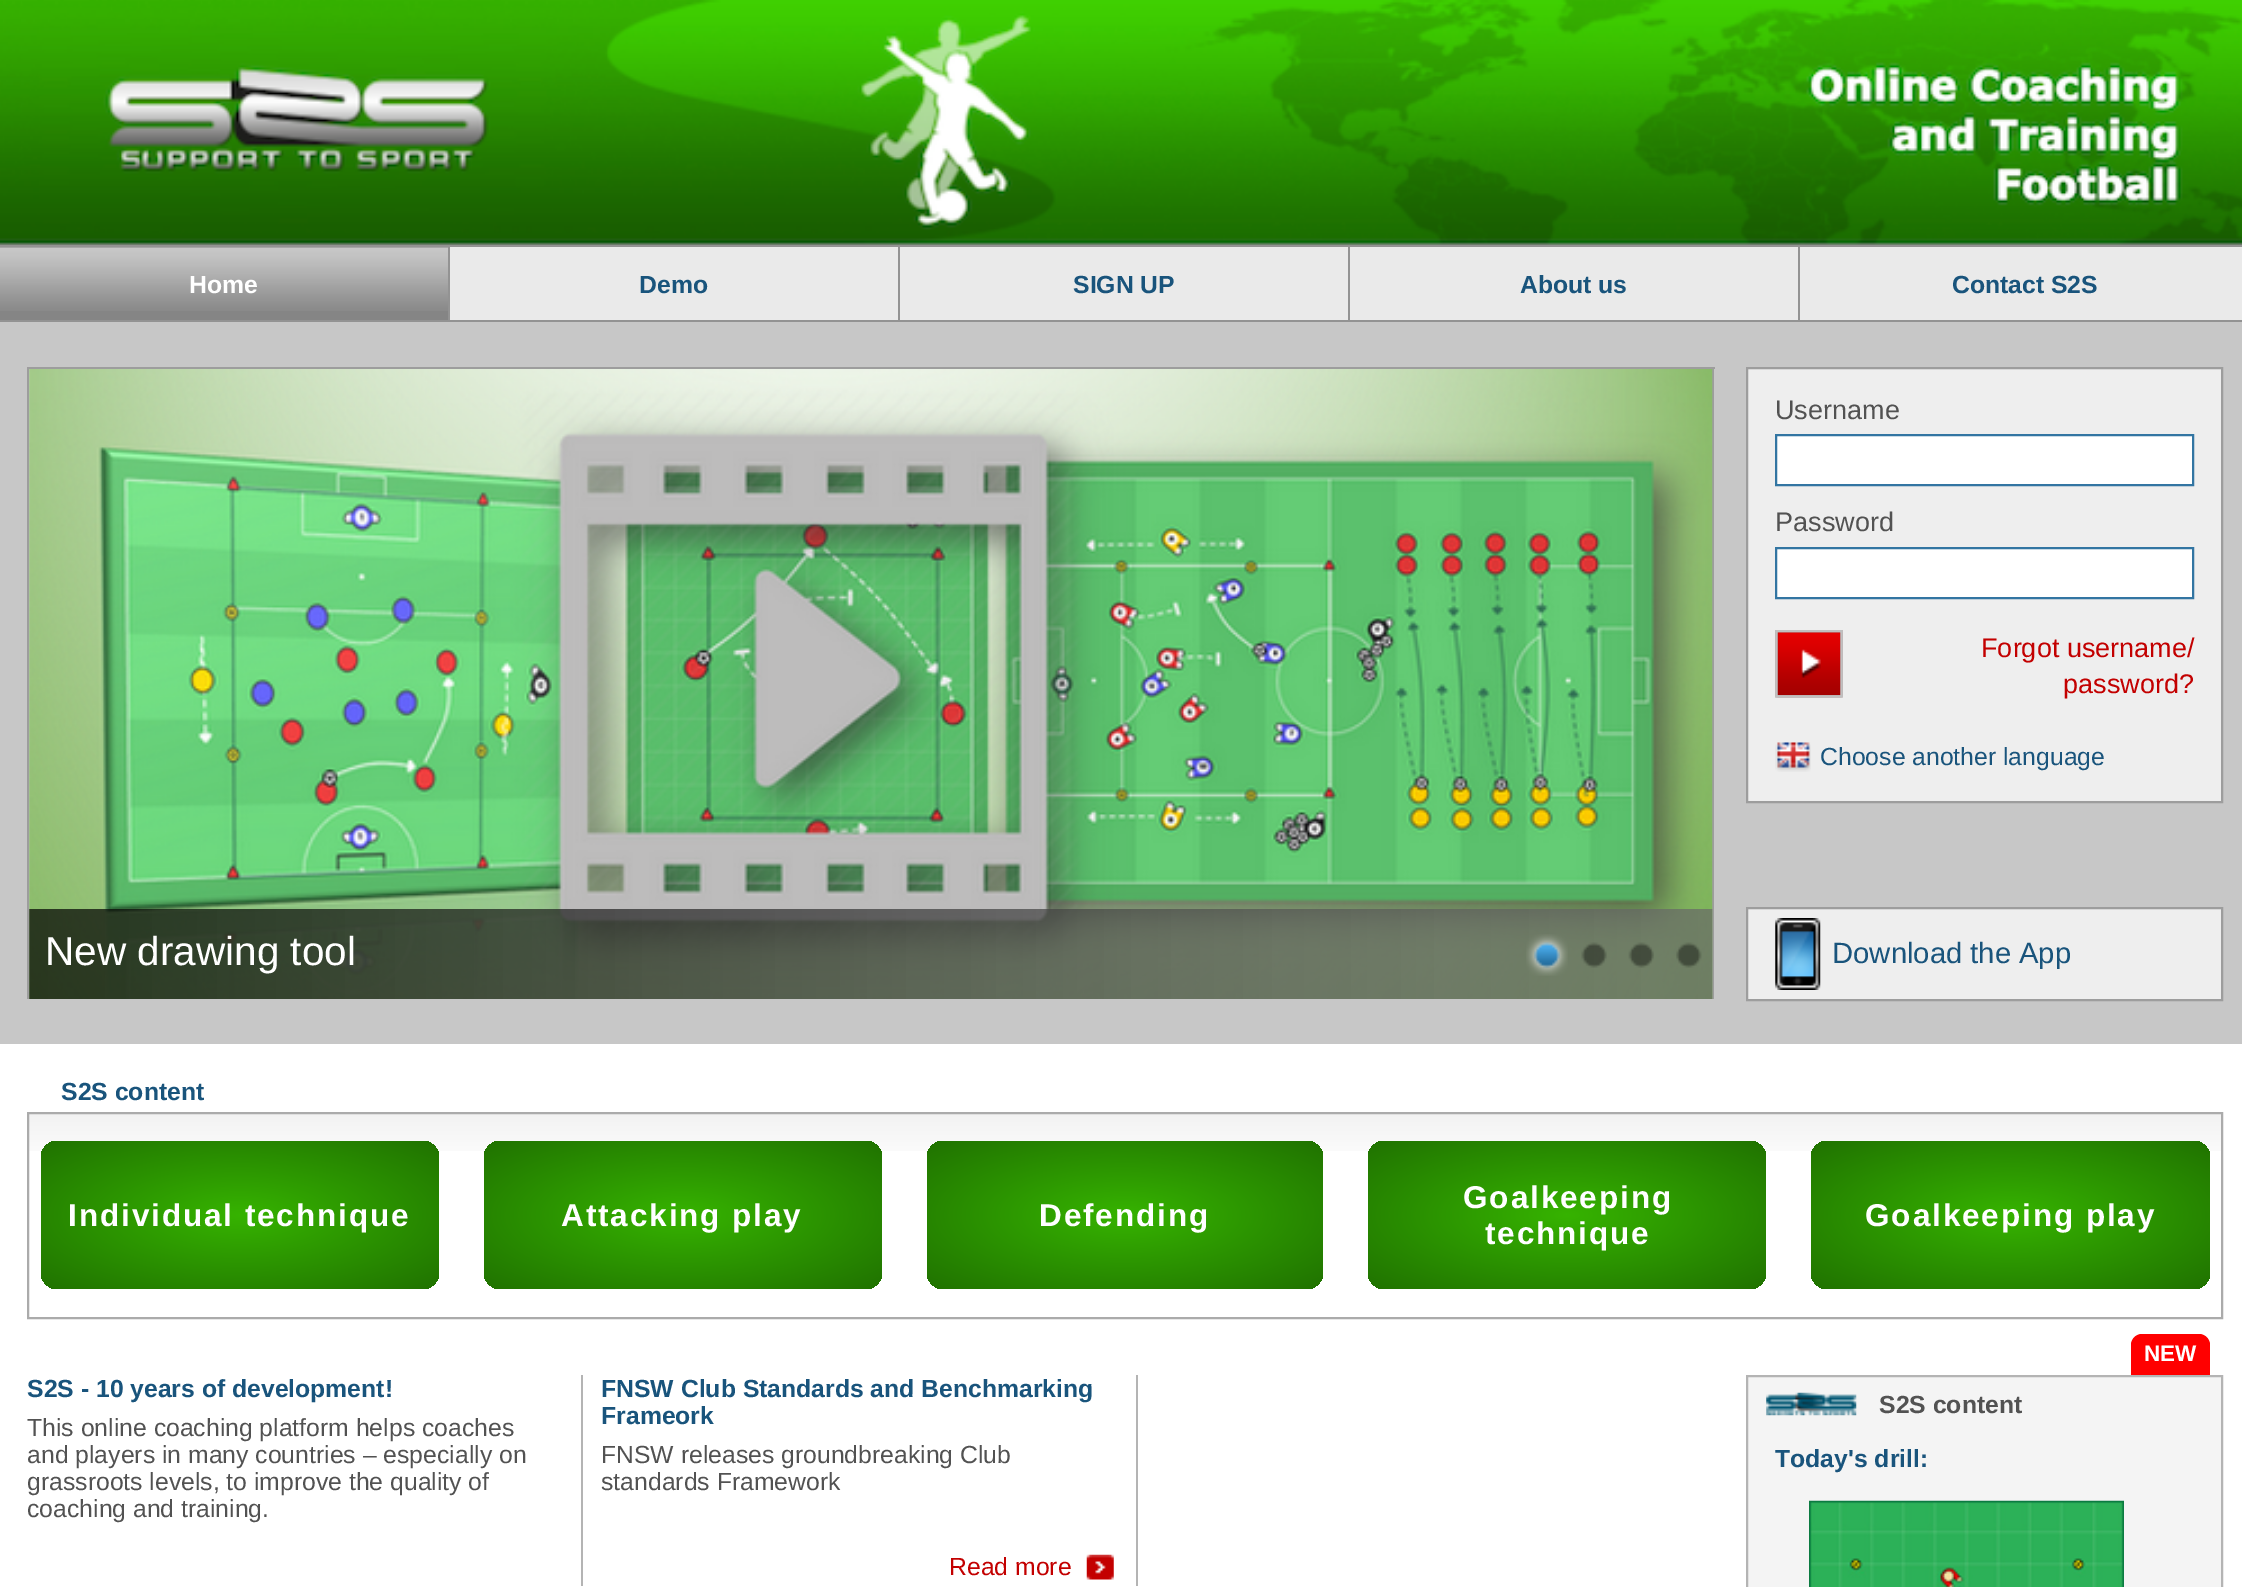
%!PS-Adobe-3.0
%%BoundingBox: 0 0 2242 1587
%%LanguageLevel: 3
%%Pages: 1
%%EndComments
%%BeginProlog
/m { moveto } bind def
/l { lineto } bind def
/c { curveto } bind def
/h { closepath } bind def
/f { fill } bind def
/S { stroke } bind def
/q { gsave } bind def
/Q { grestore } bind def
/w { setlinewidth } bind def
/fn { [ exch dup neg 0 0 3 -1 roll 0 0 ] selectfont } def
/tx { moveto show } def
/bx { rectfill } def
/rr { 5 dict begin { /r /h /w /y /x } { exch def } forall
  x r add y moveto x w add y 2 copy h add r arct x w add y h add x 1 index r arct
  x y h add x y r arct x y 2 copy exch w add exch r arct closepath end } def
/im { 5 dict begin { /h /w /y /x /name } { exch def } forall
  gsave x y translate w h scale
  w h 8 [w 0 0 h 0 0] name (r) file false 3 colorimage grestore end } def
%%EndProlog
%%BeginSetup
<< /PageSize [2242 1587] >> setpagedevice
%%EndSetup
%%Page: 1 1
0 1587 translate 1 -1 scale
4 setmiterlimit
1 setgray
0 0 2242 1587 bx
(image0.raw) 0 0 2242 245 im
0.918 setgray
450 247 1792 73 bx
0.522 setgray
0 247 448 73 bx
(image1.raw) 0 247 448 64 im
0.576 setgray
0 245 2242 2 bx
448 245 2 77 bx
0 320 450 2 bx
/LiberationSans-Bold 24.75 fn
1 setgray
(Home) 189 293 tx
0.576 setgray
898 245 2 77 bx
450 320 450 2 bx
0.098 0.329 0.486 setrgbcolor
(Demo) 639 293 tx
0.576 setgray
1348 245 2 77 bx
900 320 450 2 bx
0.098 0.329 0.486 setrgbcolor
(SIGN UP) 1073 293 tx
0.576 setgray
1798 245 2 77 bx
1350 320 892 2 bx
0.098 0.329 0.486 setrgbcolor
(About us) 1520 293 tx
(Contact S2S) 1952 293 tx
0.78 setgray
0 322 2242 722 bx
0.616 setgray
27 367 1688 2 bx
1712 367 2 632 bx
27 367 2 632 bx
(image2.raw) 29 369 1684 630 im
(image3.raw) 29 909 1684 90 im
/LiberationSans-Regular 40.5 fn
1 setgray
(New drawing tool) 45 965 tx
(image4.raw) 1526 934 42 42 im
(image5.raw) 1581 942 26 26 im
(image6.raw) 1628 942 26 26 im
(image7.raw) 1676 942 26 26 im
0.933 setgray
1747 368 m 2222 368 l 2222 802 l 1747 802 l h q f Q
0.616 setgray
2 w
S
/LiberationSans-Regular 27 fn
0.322 setgray
(Username) 1775 419 tx
1 setgray
1776 435 m 2193 435 l 2193 485 l 1776 485 l h q f Q
0.196 0.459 0.635 setrgbcolor
S
0.322 setgray
(Password) 1775 531 tx
1 setgray
1776 548 m 2193 548 l 2193 598 l 1776 598 l h q f Q
0.196 0.459 0.635 setrgbcolor
S
(image8.raw) 1775 630 68 68 im
(image9.raw) 1775 630 68 68 im
0.765 0 0 setrgbcolor
(Forgot username/) 1981 657 tx
(password?) 2063 693 tx
(image10.raw) 1775 742 36 30 im
/LiberationSans-Regular 24.75 fn
0.098 0.329 0.486 setrgbcolor
(Choose another language) 1820 765 tx
0.933 setgray
1747 908 m 2222 908 l 2222 1000 l 1747 1000 l h q f Q
0.616 setgray
S
(image11.raw) 1775 918 46 72 im
/LiberationSans-Regular 29.25 fn
0.098 0.329 0.486 setrgbcolor
(Download the App) 1832 963 tx
/LiberationSans-Bold 24.75 fn
(S2S content) 61 1100 tx
(image12.raw) 29 1114 2192 37 im
0.671 setgray
28 1113 2194 205 rectstroke
q 41 1141 398 148 16 rr clip newpath 240 1215 translate 282 105 scale
<< /ShadingType 3 /ColorSpace /DeviceRGB /Coords [0 0 0 0 0 1] /Extend [true true] /Function << /FunctionType 2 /Domain [0 1] /C0 [0.212 0.702 0] /C1 [0.125 0.447 0] /N 1 >> >> shfill Q
/LiberationSans-Bold 31.5 fn
1 setgray
68 1226 m 1.9 0 (Individual technique) ashow
q 484 1141 398 148 16 rr clip newpath 683 1215 translate 282 105 scale
<< /ShadingType 3 /ColorSpace /DeviceRGB /Coords [0 0 0 0 0 1] /Extend [true true] /Function << /FunctionType 2 /Domain [0 1] /C0 [0.212 0.702 0] /C1 [0.125 0.447 0] /N 1 >> >> shfill Q
561 1226 m 1.9 0 (Attacking play) ashow
q 927 1141 396 148 16 rr clip newpath 1125 1215 translate 280 105 scale
<< /ShadingType 3 /ColorSpace /DeviceRGB /Coords [0 0 0 0 0 1] /Extend [true true] /Function << /FunctionType 2 /Domain [0 1] /C0 [0.212 0.702 0] /C1 [0.125 0.447 0] /N 1 >> >> shfill Q
1039 1226 m 1.9 0 (Defending) ashow
q 1368 1141 398 148 16 rr clip newpath 1567 1215 translate 282 105 scale
<< /ShadingType 3 /ColorSpace /DeviceRGB /Coords [0 0 0 0 0 1] /Extend [true true] /Function << /FunctionType 2 /Domain [0 1] /C0 [0.212 0.702 0] /C1 [0.125 0.447 0] /N 1 >> >> shfill Q
1463 1208 m 1.9 0 (Goalkeeping) ashow
1485 1244 m 1.9 0 (technique) ashow
q 1811 1141 399 148 16 rr clip newpath 2010 1215 translate 282 105 scale
<< /ShadingType 3 /ColorSpace /DeviceRGB /Coords [0 0 0 0 0 1] /Extend [true true] /Function << /FunctionType 2 /Domain [0 1] /C0 [0.212 0.702 0] /C1 [0.125 0.447 0] /N 1 >> >> shfill Q
1865 1226 m 1.9 0 (Goalkeeping play) ashow
/LiberationSans-Bold 24.75 fn
0.098 0.329 0.486 setrgbcolor
(S2S - 10 years of development!) 27 1397 tx
/LiberationSans-Regular 24.75 fn
0.322 setgray
(This online coaching platform helps coaches) 27 1436 tx
(and players in many countries – especially on) 27 1463 tx
(grassroots levels, to improve the quality of) 27 1490 tx
(coaching and training.) 27 1517 tx
/LiberationSans-Bold 24.75 fn
0.098 0.329 0.486 setrgbcolor
(FNSW Club Standards and Benchmarking) 601 1397 tx
(Frameork) 601 1424 tx
/LiberationSans-Regular 24.75 fn
0.322 setgray
(FNSW releases groundbreaking Club) 601 1463 tx
(standards Framework) 601 1490 tx
0.706 setgray
581 1375 2 211 bx
(image13.raw) 1086 1554 28 26 im
0.765 0 0 setrgbcolor
(Read more) 949 1575 tx
0.706 setgray
1136 1375 2 211 bx
0.957 setgray
1747 1376 m 2222 1376 l 2222 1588 l 1747 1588 l h q f Q
0.706 setgray
S
1 0 0 setrgbcolor
2142 1334 m 2199 1334 l 2205 1334 2210 1339 2210 1345 c 2210 1375 l 2131 1375 l 2131 1345 l 2131 1339 2136 1334 2142 1334 c h f
/LiberationSans-Bold 22.5 fn
1 setgray
(NEW) 2144 1361 tx
(image14.raw) 1766 1392 91 24 im
/LiberationSans-Bold 24.75 fn
0.322 setgray
(S2S content) 1879 1413 tx
0.098 0.329 0.486 setrgbcolor
(Today's drill:) 1775 1467 tx
(image15.raw) 1809 1500 315 87 im
showpage
%%EOF
